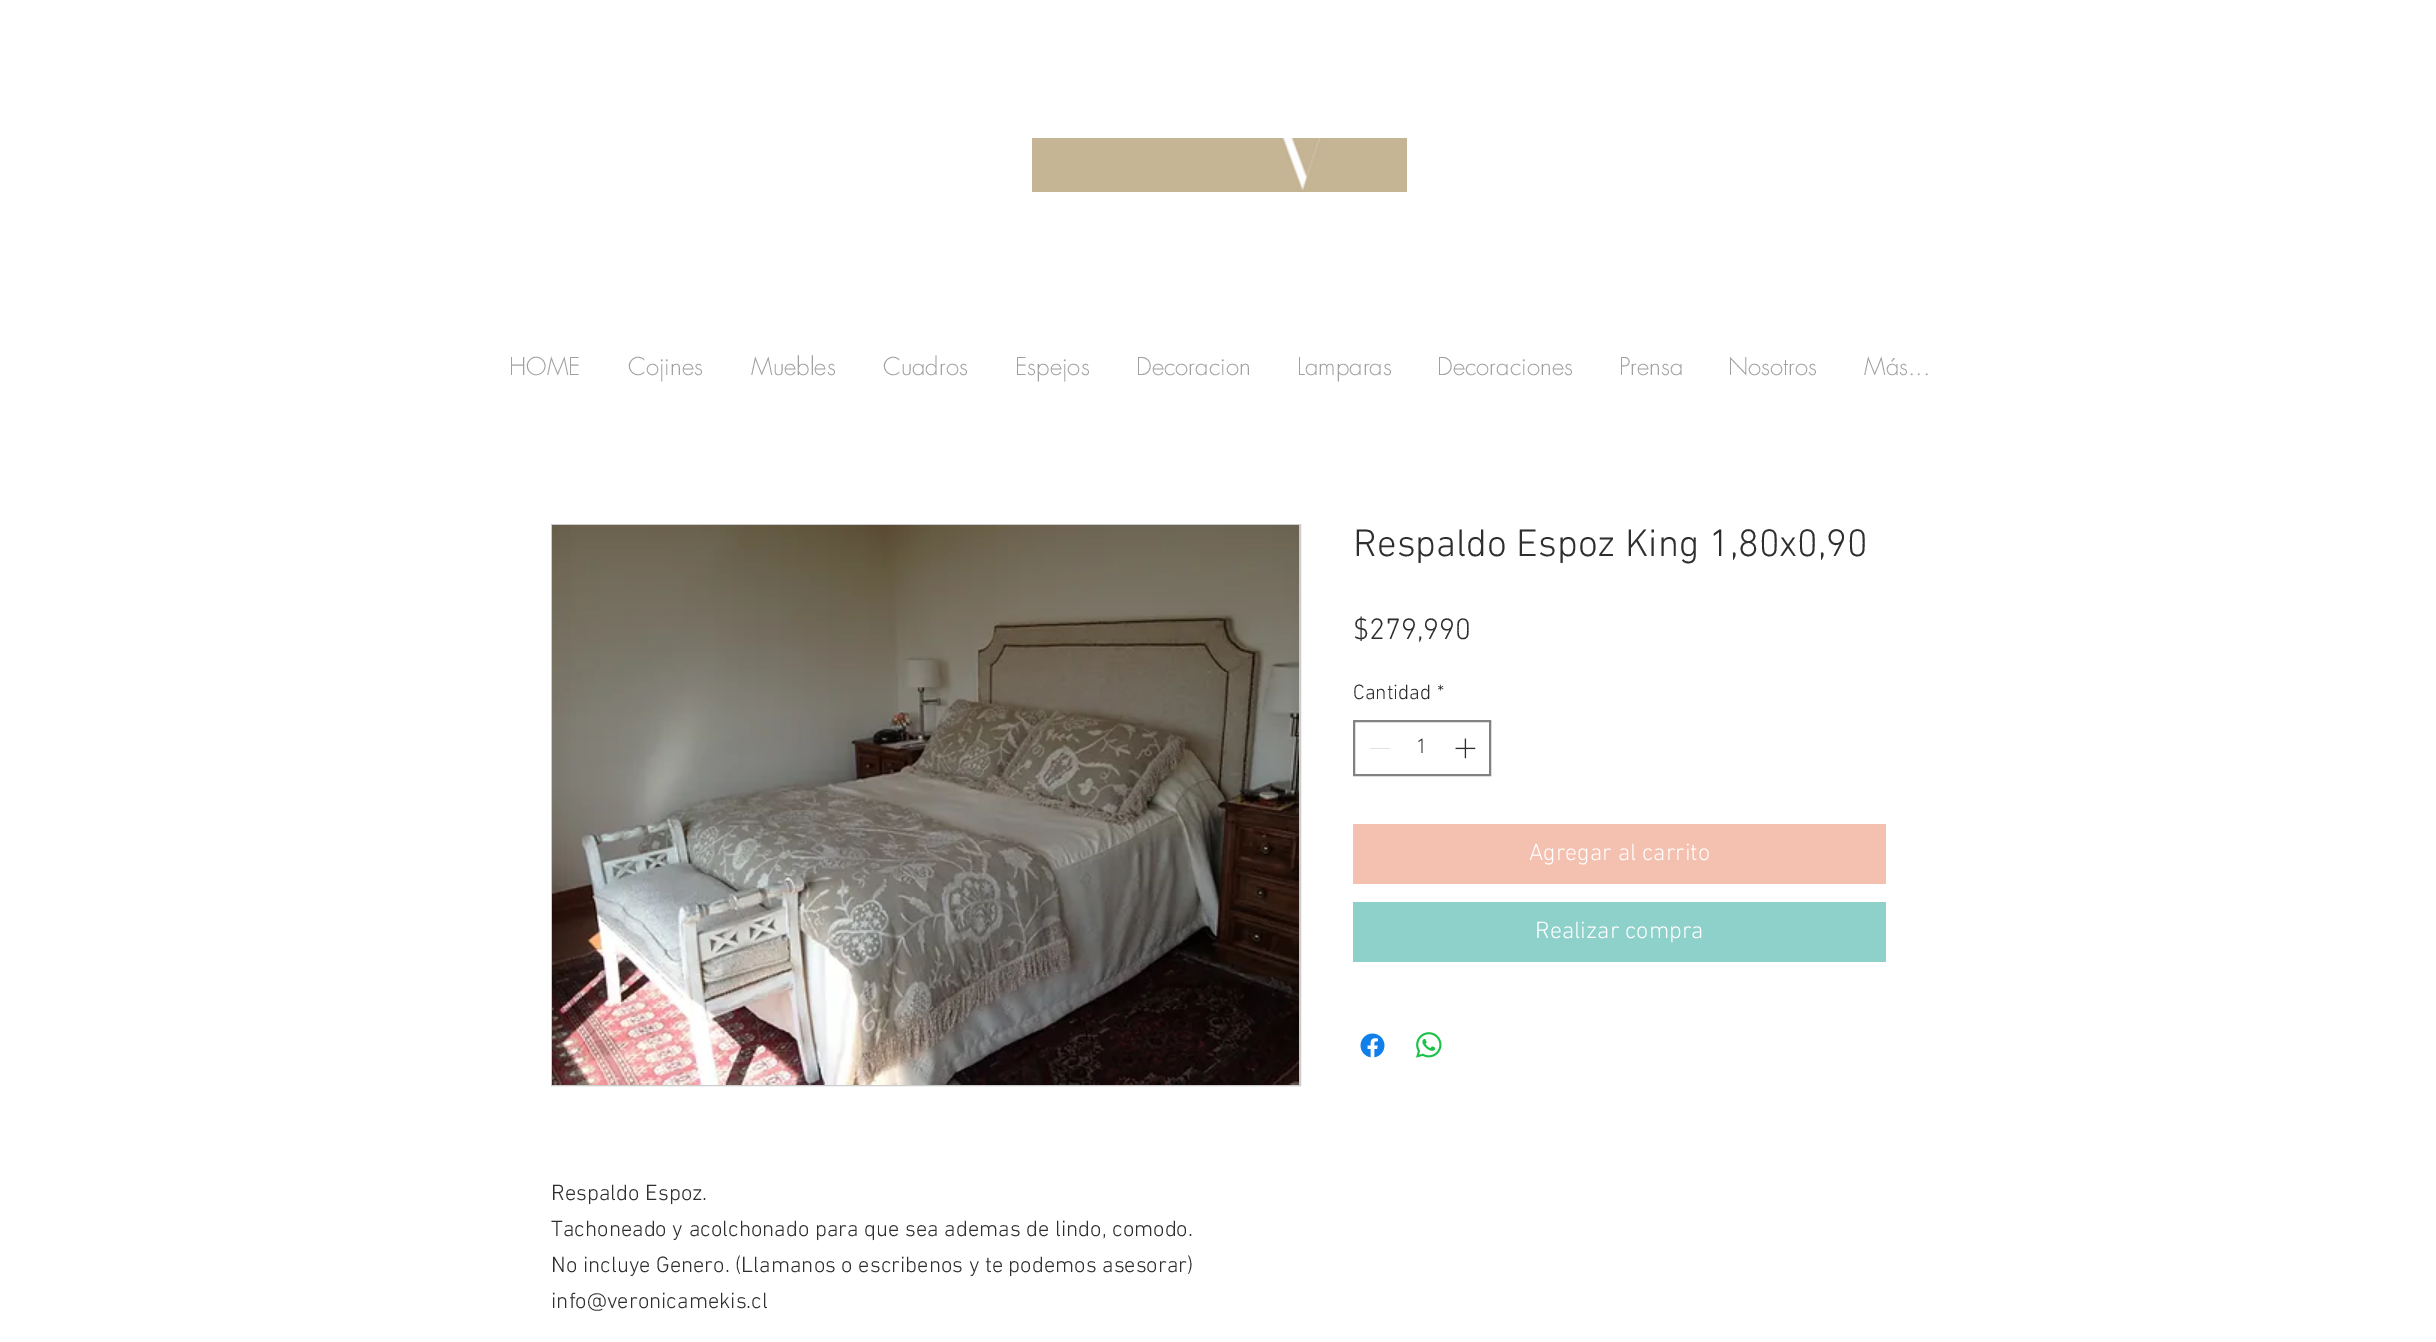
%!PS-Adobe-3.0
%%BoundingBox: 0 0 2436 1342
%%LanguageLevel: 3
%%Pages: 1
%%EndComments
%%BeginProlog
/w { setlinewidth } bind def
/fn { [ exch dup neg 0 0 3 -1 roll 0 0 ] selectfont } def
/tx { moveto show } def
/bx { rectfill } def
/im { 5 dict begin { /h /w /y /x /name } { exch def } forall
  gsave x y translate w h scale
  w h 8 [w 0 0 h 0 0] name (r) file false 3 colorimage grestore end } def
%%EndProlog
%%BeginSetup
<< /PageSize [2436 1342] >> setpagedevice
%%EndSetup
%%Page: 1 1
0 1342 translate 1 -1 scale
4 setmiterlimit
1 setgray
0 0 2436 1342 bx
(image0.raw) 1032 138 375 54 im
/futura-Light 24 fn
0.627 0.627 0.624 setrgbcolor
(HOME) 509 375 tx
(Cojines) 628 375 tx
(Muebles) 751 375 tx
(Cuadros) 883 375 tx
(Espejos) 1015 375 tx
(Decoracion) 1136 375 tx
(Lamparas) 1297 375 tx
(Decoraciones) 1437 375 tx
(Prensa) 1619 375 tx
(Nosotros) 1728 375 tx
(Más...) 1864 375 tx
/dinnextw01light-Light 39 fn
0.184 0.18 0.18 setrgbcolor
(Respaldo Espoz King 1,80x0,90) 1353 556 tx
/dinnextw01light-Light 30 fn
($279,990) 1353 639 tx
/dinnextw01light-Light 21 fn
(Cantidad) 1353 699 tx
(*) 1437 699 tx
0.51 setgray
2 w
1354 721 136 54 rectstroke
0.89 setgray
1370 748 20 1 bx
0.184 0.18 0.18 setrgbcolor
(1) 1416 753 tx
(image1.raw) 1455 738 21 21 im
0.957 0.753 0.686 setrgbcolor
1353 824 533 60 bx
/dinnextw01light-Light 24 fn
1 setgray
(Agregar al carrito) 1529 860 tx
0.553 0.82 0.792 setrgbcolor
1353 902 533 60 bx
1 setgray
(Realizar compra) 1535 938 tx
(image2.raw) 1360 1033 25 25 im
(image3.raw) 1416 1032 26 26 im
0.8 setgray
552 525 748 560 rectstroke
(image4.raw) 552 525 747 560 im
/dinnextw01light-Light 22.5 fn
0.184 0.18 0.18 setrgbcolor
(Respaldo Espoz.) 551 1200 tx
(Tachoneado y acolchonado para que sea ademas de lindo, comodo.) 551 1236 tx
(No incluye Genero. \(Llamanos o escribenos y te podemos asesorar\)) 551 1272 tx
(info@veronicamekis.cl) 551 1308 tx
showpage
%%EOF
